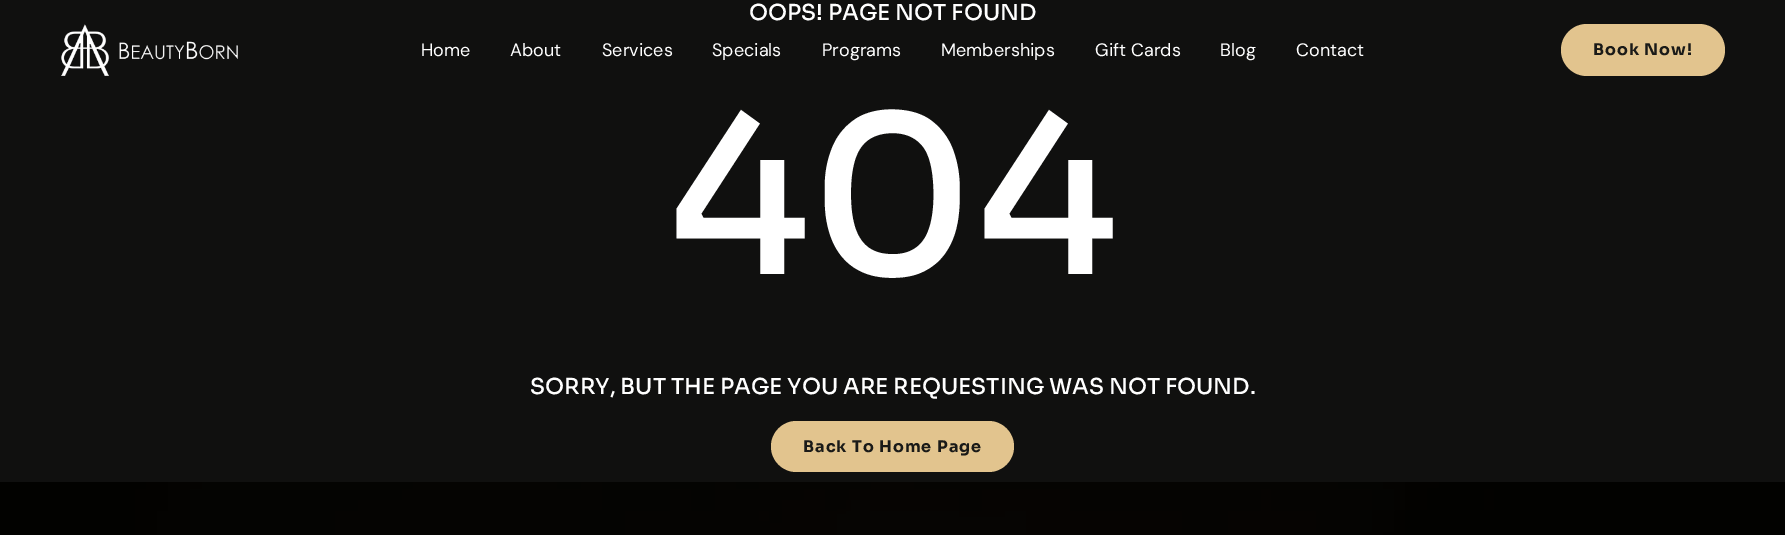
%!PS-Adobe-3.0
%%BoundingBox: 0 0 1785 535
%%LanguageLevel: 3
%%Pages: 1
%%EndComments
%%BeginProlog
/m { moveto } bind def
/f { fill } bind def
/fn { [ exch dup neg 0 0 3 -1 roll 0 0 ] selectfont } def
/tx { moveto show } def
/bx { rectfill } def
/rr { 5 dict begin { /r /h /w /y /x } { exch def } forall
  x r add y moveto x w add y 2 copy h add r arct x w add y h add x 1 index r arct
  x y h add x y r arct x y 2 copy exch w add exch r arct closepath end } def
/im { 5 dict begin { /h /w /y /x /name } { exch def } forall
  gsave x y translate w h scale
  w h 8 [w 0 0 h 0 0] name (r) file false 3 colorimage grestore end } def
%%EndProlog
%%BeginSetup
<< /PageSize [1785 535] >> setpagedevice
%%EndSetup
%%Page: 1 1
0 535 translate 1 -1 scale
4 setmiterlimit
0.063 0.063 0.059 setrgbcolor
0 0 1785 535 bx
/Sora-Medium 22 fn
1 setgray
(OOPS! PAGE NOT FOUND) 749 20 tx
/Sora-Medium 220 fn
(404) 667 274 tx
/Sora-Medium 22 fn
(SORRY, BUT THE PAGE YOU ARE REQUESTING WAS NOT FOUND.) 530 394 tx
0.886 0.769 0.557 setrgbcolor
771 421 243 51 25.5 rr f
/Sora-Bold 16 fn
0.102 0.102 0.094 setrgbcolor
803 452 m 1 0 (Back To Home Page) ashow
(image0.raw) 61 24 177 52 im
/DMSans-Regular 18 fn
1 setgray
(Home) 421 56 tx
(About) 510 56 tx
(Services) 602 56 tx
(Specials) 712 56 tx
(Programs) 822 56 tx
(Memberships) 941 56 tx
(Gift Cards) 1095 56 tx
(Blog) 1220 56 tx
(Contact) 1296 56 tx
0.886 0.769 0.557 setrgbcolor
1561 24 164 52 26 rr f
/Sora-Bold 16 fn
0.102 0.102 0.094 setrgbcolor
1593 55 m 1 0 (Book Now!) ashow
(image1.raw) 0 482 1785 53 im
showpage
%%EOF
